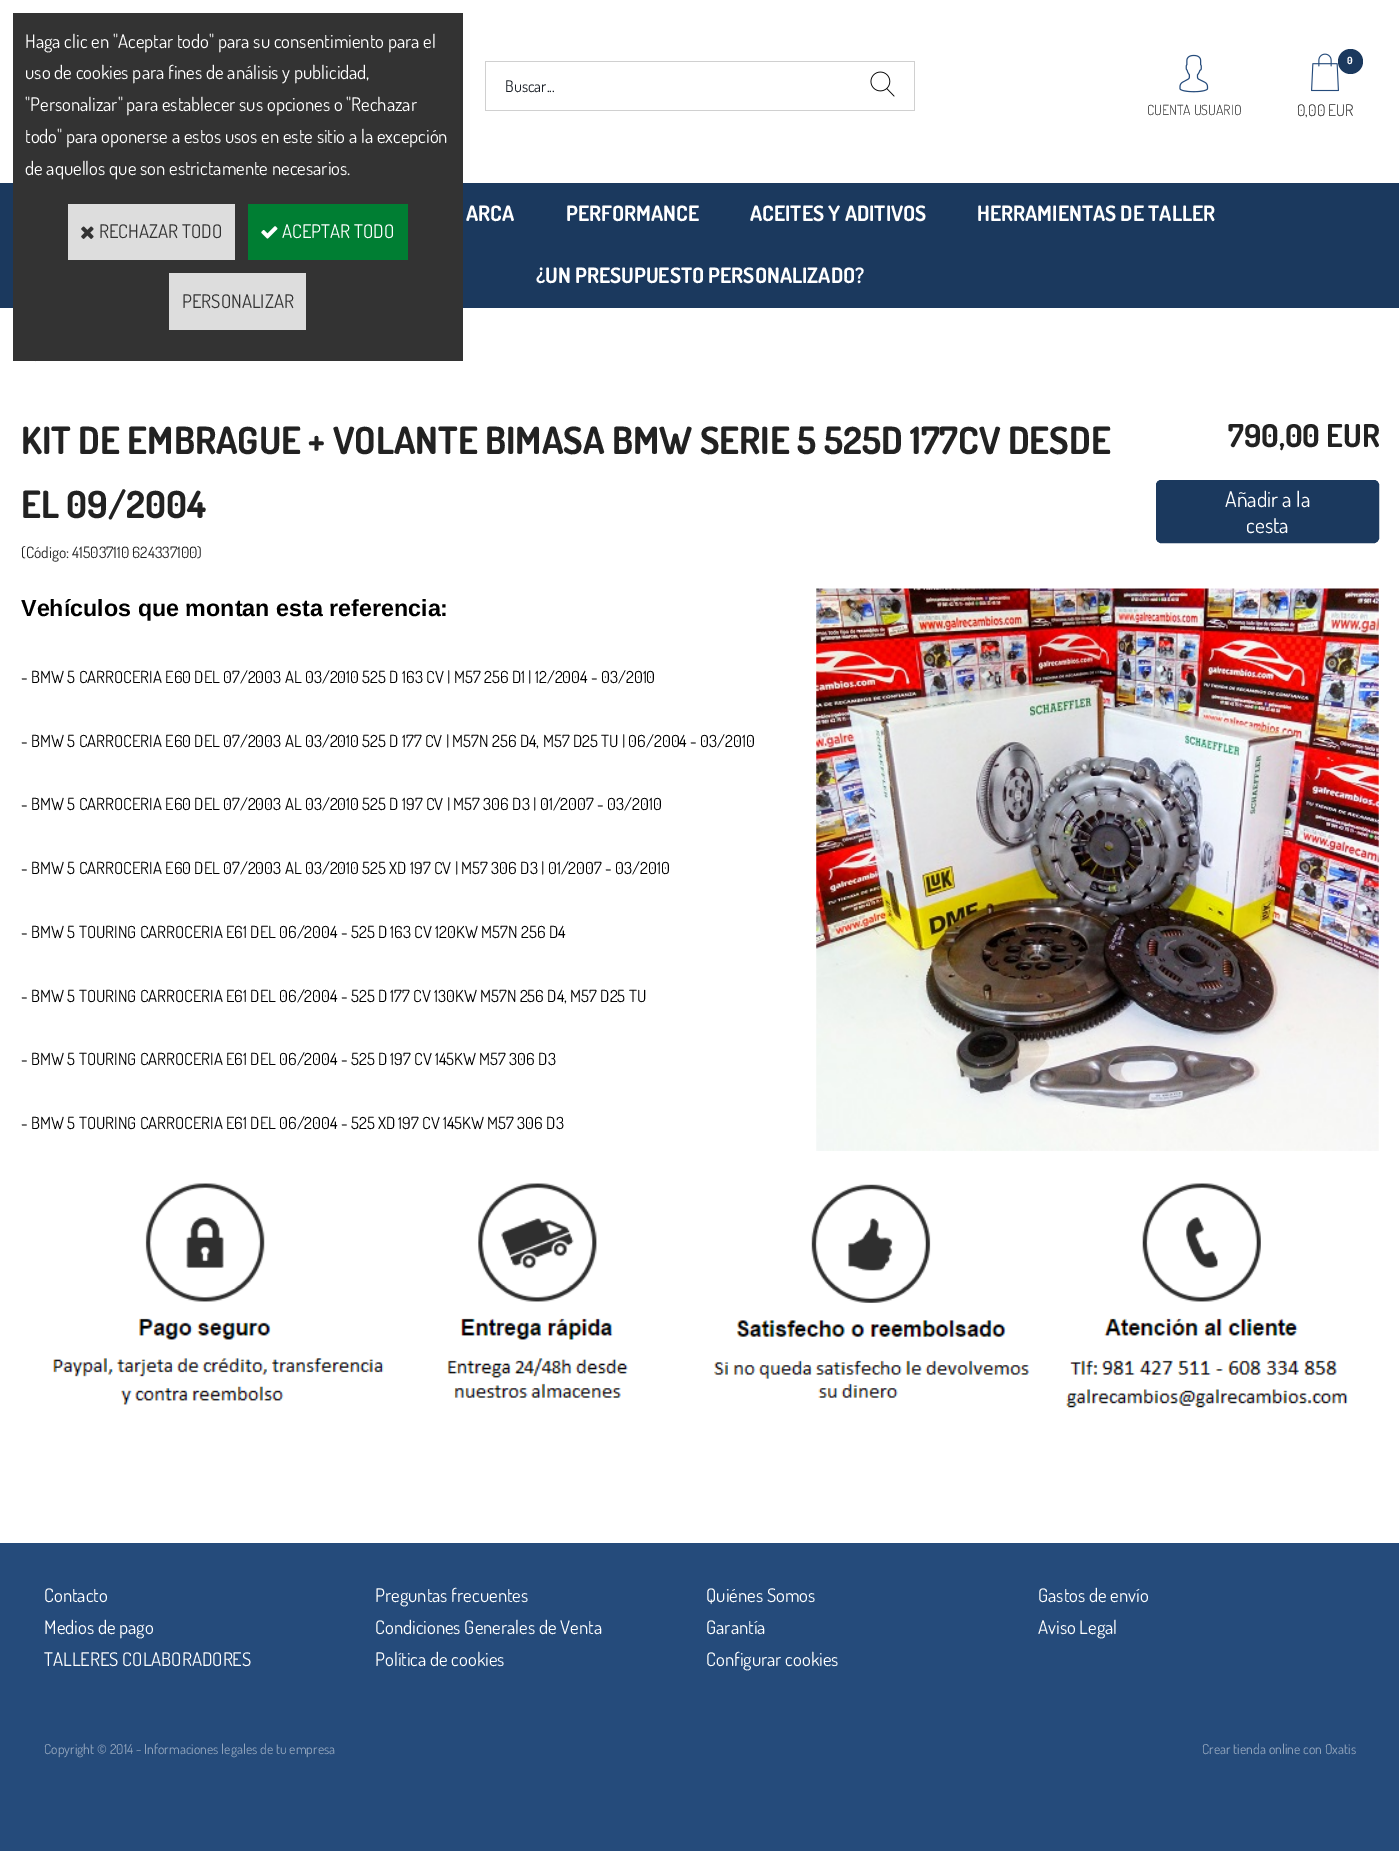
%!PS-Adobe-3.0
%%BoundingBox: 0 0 1399 1851
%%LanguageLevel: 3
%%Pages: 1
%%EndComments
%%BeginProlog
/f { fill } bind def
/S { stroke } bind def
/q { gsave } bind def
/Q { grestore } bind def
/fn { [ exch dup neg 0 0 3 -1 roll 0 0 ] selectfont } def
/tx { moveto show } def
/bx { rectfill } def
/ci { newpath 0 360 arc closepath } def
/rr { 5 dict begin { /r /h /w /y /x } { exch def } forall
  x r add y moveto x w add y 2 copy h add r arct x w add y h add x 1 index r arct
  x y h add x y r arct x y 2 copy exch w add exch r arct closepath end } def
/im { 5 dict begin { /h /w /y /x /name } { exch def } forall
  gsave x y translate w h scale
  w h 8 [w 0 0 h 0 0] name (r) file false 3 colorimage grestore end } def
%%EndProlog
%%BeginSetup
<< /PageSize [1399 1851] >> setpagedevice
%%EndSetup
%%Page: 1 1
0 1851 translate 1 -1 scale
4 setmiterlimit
1 setgray
0 0 1399 1851 bx
0.106 0.224 0.369 setrgbcolor
0 183 1399 125 bx
0.2 setgray
13 13 450 348 bx
/Dosis-Regular 18.75 fn
1 setgray
(Haga clic en "Aceptar todo" para su consentimiento para el) 25 48 tx
(uso de cookies para fines de análisis y publicidad,) 25 79 tx
("Personalizar" para establecer sus opciones o "Rechazar) 25 111 tx
(todo" para oponerse a estos usos en este sitio a la excepción) 25 143 tx
(de aquellos que son estrictamente necesarios.) 25 175 tx
0.867 setgray
68 204 167 56 bx
(image0.raw) 81 226 13 13 im
0.2 setgray
(RECHAZAR TODO) 99 238 tx
0 0.494 0.2 setrgbcolor
248 204 160 56 bx
(image1.raw) 261 226 17 13 im
1 setgray
(ACEPTAR TODO) 282 238 tx
0.867 setgray
169 273 137 57 bx
0.2 setgray
(PERSONALIZAR) 182 308 tx
0.816 setgray
485 61 430 1 bx
485 110 366 1 bx
485 61 1 50 bx
/Dosis-Regular 16 fn
0.102 0.122 0.149 setrgbcolor
(Buscar...) 505 92 tx
0.816 setgray
914 61 1 50 bx
851 110 64 1 bx
(image2.raw) 870 71 25 26 im
(image3.raw) 1179 54 30 39 im
/Dosis-Light 14 fn
0.133 setgray
(CUENTA USUARIO) 1147 115 tx
(image4.raw) 1311 53 28 39 im
0.106 0.224 0.369 setrgbcolor
1350.5 61.5 12.5 ci f
/Dosis-Bold 10 fn
1 setgray
(0) 1347 64 tx
/Dosis-Light 16 fn
0.133 setgray
(0,00 EUR) 1297 116 tx
/Dosis-Bold 21.25 fn
1 setgray
(ARCA) 466 221 tx
(PERFORMANCE) 566 221 tx
(ACEITES Y ADITIVOS) 750 221 tx
(HERRAMIENTAS DE TALLER) 977 221 tx
(¿UN PRESUPUESTO PERSONALIZADO?) 536 283 tx
(image5.raw) 35 361 1 1 im
/Dosis-Bold 37.5 fn
0.133 setgray
(KIT DE EMBRAGUE + VOLANTE BIMASA BMW SERIE 5 525D 177CV DESDE) 21 454 tx
(EL 09/2004) 21 518 tx
/Dosis-Regular 15.6 fn
(\(Código: 415037110 624337100\)) 21 558 tx
/Dosis-Bold 31.5 fn
(790,00 EUR) 1228 447 tx
0.106 0.224 0.369 setrgbcolor
1156.5 480.5 222 62 4.5 rr q f Q
S
/Dosis-Regular 21.5 fn
1 setgray
(Añadir a la) 1225 507 tx
(cesta) 1246 533 tx
/LiberationSans-Bold 23.3 fn
0 setgray
(Vehículos que montan esta referencia:) 21 616 tx
/Dosis-Regular 16.65 fn
(- BMW 5 CARROCERIA E60 DEL 07/2003 AL 03/2010 525 D 163 CV | M57 256 D1 | 12/2004 - 03/2010) 21 683 tx
(- BMW 5 CARROCERIA E60 DEL 07/2003 AL 03/2010 525 D 177 CV | M57N 256 D4, M57 D25 TU | 06/2004 - 03/2010) 21 747 tx
(- BMW 5 CARROCERIA E60 DEL 07/2003 AL 03/2010 525 D 197 CV | M57 306 D3 | 01/2007 - 03/2010) 21 810 tx
(- BMW 5 CARROCERIA E60 DEL 07/2003 AL 03/2010 525 XD 197 CV | M57 306 D3 | 01/2007 - 03/2010) 21 874 tx
(- BMW 5 TOURING CARROCERIA E61 DEL 06/2004 - 525 D 163 CV 120KW M57N 256 D4) 21 938 tx
(- BMW 5 TOURING CARROCERIA E61 DEL 06/2004 - 525 D 177 CV 130KW M57N 256 D4, M57 D25 TU) 21 1002 tx
(- BMW 5 TOURING CARROCERIA E61 DEL 06/2004 - 525 D 197 CV 145KW M57 306 D3) 21 1065 tx
(- BMW 5 TOURING CARROCERIA E61 DEL 06/2004 - 525 XD 197 CV 145KW M57 306 D3) 21 1129 tx
(image6.raw) 816 588 563 563 im
(image7.raw) 53 1183 1295 225 im
0.145 0.294 0.482 setrgbcolor
0 1543 1399 308 bx
/Dosis-Regular 18.75 fn
1 setgray
(Contacto) 44 1602 tx
(Preguntas frecuentes) 375 1602 tx
(Quiénes Somos) 706 1602 tx
(Gastos de envío) 1038 1602 tx
(Medios de pago) 44 1634 tx
(Condiciones Generales de Venta) 375 1634 tx
(Garantía) 706 1634 tx
(Aviso Legal) 1038 1634 tx
(TALLERES COLABORADORES) 44 1666 tx
(Política de cookies) 375 1666 tx
(Configurar cookies) 706 1666 tx
/Dosis-Regular 13.75 fn
0.573 0.647 0.741 setrgbcolor
(Copyright © 2014 - Informaciones legales de tu empresa) 44 1754 tx
(Crear tienda online con Oxatis) 1202 1754 tx
showpage
%%EOF
